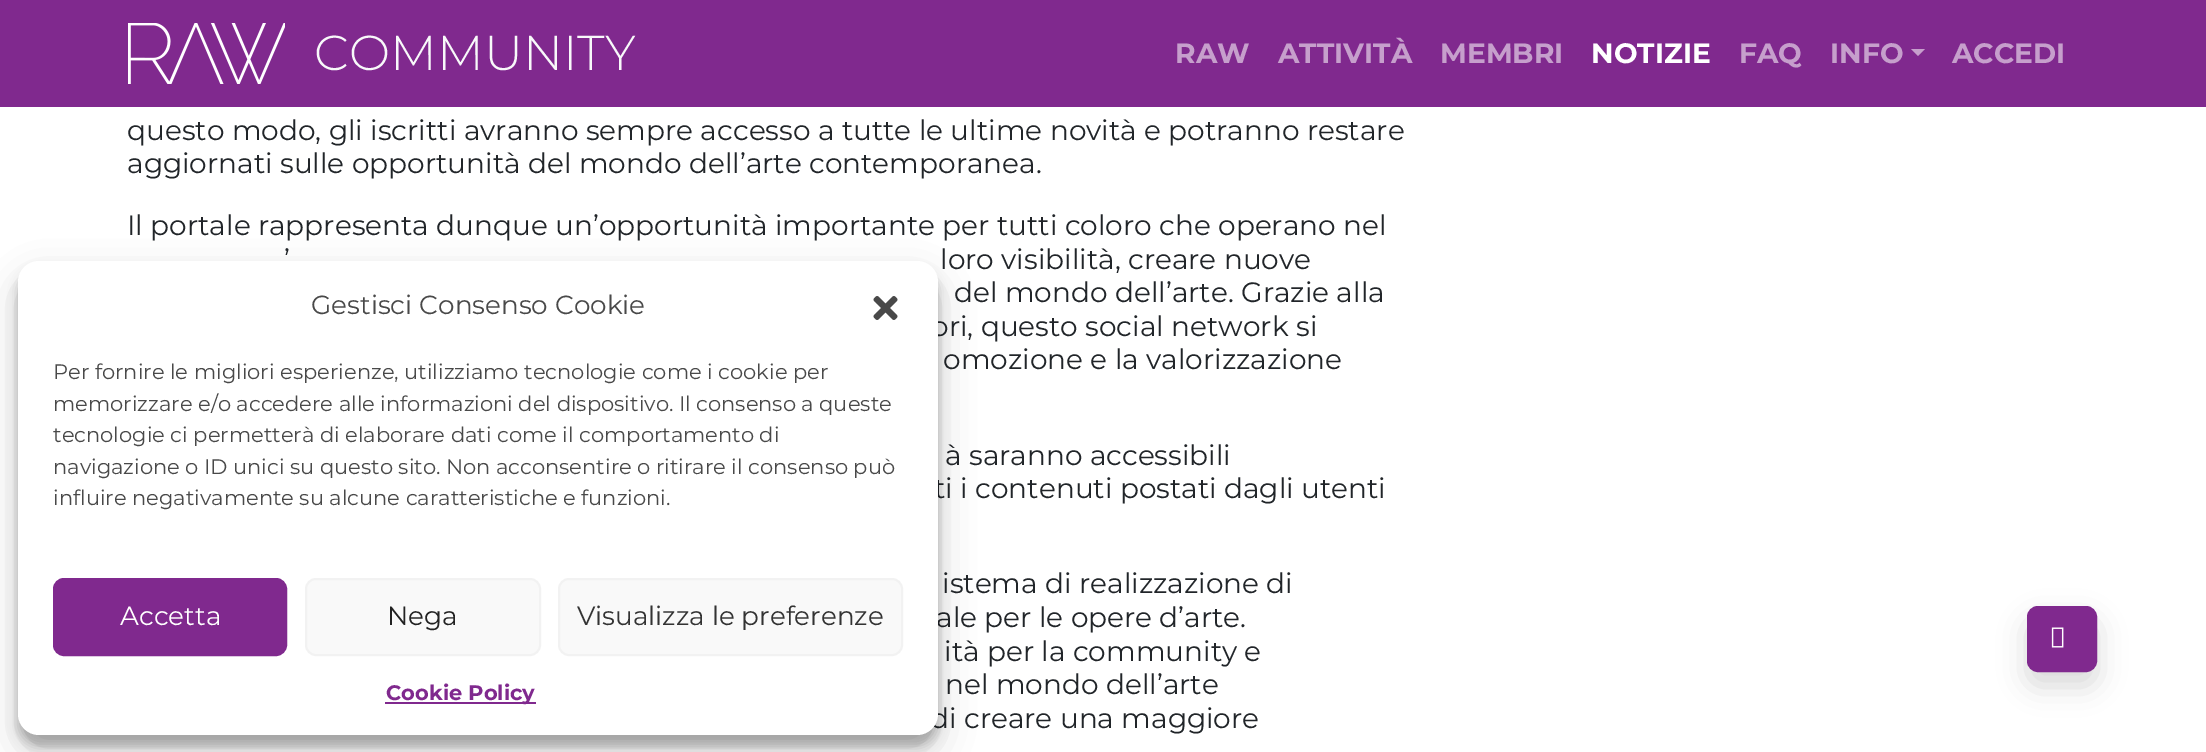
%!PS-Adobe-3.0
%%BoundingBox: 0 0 2206 752
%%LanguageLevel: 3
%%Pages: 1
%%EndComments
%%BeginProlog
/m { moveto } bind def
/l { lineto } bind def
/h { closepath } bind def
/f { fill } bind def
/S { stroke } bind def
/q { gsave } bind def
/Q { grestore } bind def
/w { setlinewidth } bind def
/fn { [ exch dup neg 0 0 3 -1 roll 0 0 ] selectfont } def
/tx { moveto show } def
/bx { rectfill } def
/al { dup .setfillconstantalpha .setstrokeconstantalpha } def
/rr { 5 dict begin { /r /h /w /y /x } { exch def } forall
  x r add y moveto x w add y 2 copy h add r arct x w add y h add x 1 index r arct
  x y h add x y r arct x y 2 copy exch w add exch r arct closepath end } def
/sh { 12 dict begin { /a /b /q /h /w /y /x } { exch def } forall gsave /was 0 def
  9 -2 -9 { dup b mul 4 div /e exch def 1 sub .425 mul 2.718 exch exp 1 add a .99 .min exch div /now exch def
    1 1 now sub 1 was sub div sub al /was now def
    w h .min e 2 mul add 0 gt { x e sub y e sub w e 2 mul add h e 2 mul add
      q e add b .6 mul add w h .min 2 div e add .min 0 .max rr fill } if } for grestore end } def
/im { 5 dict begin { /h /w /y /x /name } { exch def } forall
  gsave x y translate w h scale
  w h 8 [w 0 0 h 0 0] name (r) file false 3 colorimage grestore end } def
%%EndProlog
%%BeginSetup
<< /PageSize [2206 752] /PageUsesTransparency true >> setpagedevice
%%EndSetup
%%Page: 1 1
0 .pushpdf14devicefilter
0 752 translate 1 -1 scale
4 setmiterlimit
1 setgray
0 0 2206 752 bx
0.502 0.161 0.557 setrgbcolor
0 0 2206 107 bx
(image0.raw) 128 23 157 61 im
/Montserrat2-Thin 49 fn
0.973 0.976 0.98 setrgbcolor
(COMMUNITY) 314 70 tx
/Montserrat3-Thin 28 fn
0.776 0.624 0.8 setrgbcolor
(RAW) 1175 63 tx
(ATTIVITÀ) 1278 63 tx
(MEMBRI) 1440 63 tx
1 setgray
(NOTIZIE) 1591 63 tx
0.776 0.624 0.8 setrgbcolor
(FAQ) 1739 63 tx
(INFO) 1830 63 tx
1911 49 m 1925 49 l 1918 56 l h f
(ACCEDI) 1952 63 tx
/Montserrat-Thin 28 fn
0.129 0.145 0.161 setrgbcolor
(questo modo, gli iscritti avranno sempre accesso a tutte le ultime novità e potranno restare) 127 140 tx
(aggiornati sulle opportunità del mondo dell’arte contemporanea.) 127 173 tx
(Il portale rappresenta dunque un’opportunità importante per tutti coloro che operano nel) 127 235 tx
(’) 284 269 tx
(loro visibilità, creare nuove) 940 269 tx
(del mondo dell’arte. Grazie alla) 954 302 tx
(ori, questo social network si) 931 336 tx
(omozione e la valorizzazione) 943 369 tx
(à saranno accessibili) 945 465 tx
(ti i contenuti postati dagli utenti) 934 498 tx
(istema di realizzazione di) 942 593 tx
(ale per le opere d’arte.) 936 627 tx
(ità per la community e) 944 661 tx
(nel mondo dell’arte) 945 694 tx
(di creare una maggiore) 930 728 tx
0 setgray
2027 620 70 66 11 14 0.15 sh
0.502 0.161 0.557 setrgbcolor
2028 607 68 64 10 rr q f Q
2 w
S
(image1.raw) 2051 627 13 21 im
0 setgray
18 271 920 475 21 5 0.23 sh
18 278 920 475 21 17.5 0.19 sh
1 setgray
18 261 920 474 21 rr f
/Montserrat-Thin 26.25 fn
0.286 setgray
(Gestisci Consenso Cookie) 311 314 tx
(image2.raw) 873 296 25 24 im
/Montserrat-Thin 21 fn
(Per fornire le migliori esperienze, utilizziamo tecnologie come i cookie per) 53 379 tx
(memorizzare e/o accedere alle informazioni del dispositivo. Il consenso a queste) 53 411 tx
(tecnologie ci permetterà di elaborare dati come il comportamento di) 53 442 tx
(navigazione o ID unici su questo sito. Non acconsentire o ritirare il consenso può) 53 474 tx
(influire negativamente su alcune caratteristiche e funzioni.) 53 505 tx
0.502 0.161 0.557 setrgbcolor
54 579 232 76 10 rr q f Q
S
/Montserrat-Thin 26.25 fn
1 setgray
(Accetta) 120 625 tx
0.976 setgray
306 579 234 76 10 rr q f Q
0.949 setgray
S
0.133 setgray
(Nega) 387 625 tx
0.976 setgray
559 579 343 76 10 rr q f Q
0.949 setgray
S
0.2 setgray
(Visualizza le preferenze) 577 625 tx
0.502 0.161 0.557 setrgbcolor
385 702 151 2 bx
/Montserrat3-Thin 21 fn
(Cookie Policy) 386 700 tx
.poppdf14devicefilter showpage
%%EOF
